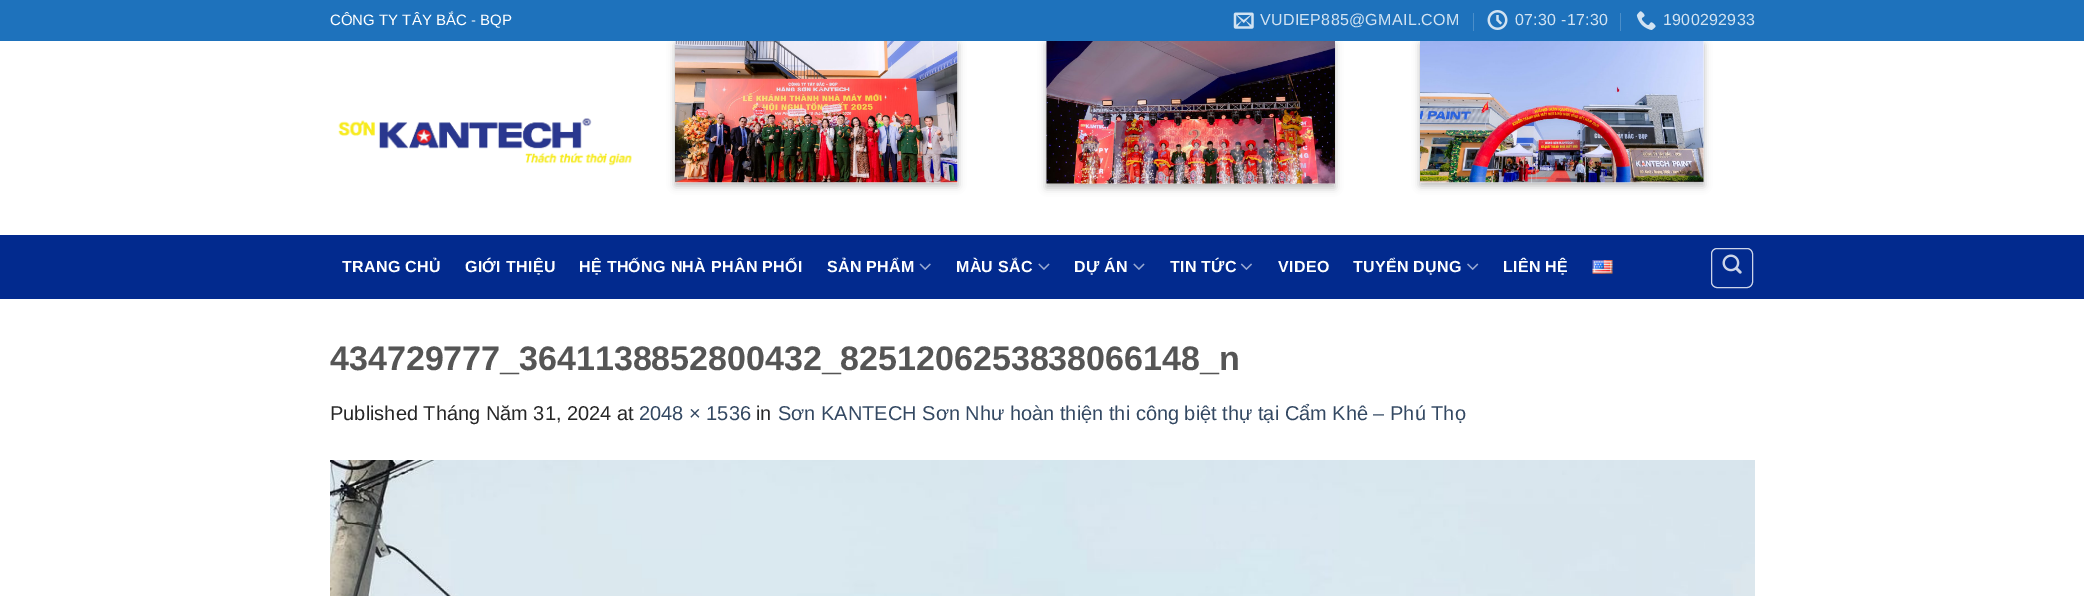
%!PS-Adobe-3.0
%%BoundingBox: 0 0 2084 596
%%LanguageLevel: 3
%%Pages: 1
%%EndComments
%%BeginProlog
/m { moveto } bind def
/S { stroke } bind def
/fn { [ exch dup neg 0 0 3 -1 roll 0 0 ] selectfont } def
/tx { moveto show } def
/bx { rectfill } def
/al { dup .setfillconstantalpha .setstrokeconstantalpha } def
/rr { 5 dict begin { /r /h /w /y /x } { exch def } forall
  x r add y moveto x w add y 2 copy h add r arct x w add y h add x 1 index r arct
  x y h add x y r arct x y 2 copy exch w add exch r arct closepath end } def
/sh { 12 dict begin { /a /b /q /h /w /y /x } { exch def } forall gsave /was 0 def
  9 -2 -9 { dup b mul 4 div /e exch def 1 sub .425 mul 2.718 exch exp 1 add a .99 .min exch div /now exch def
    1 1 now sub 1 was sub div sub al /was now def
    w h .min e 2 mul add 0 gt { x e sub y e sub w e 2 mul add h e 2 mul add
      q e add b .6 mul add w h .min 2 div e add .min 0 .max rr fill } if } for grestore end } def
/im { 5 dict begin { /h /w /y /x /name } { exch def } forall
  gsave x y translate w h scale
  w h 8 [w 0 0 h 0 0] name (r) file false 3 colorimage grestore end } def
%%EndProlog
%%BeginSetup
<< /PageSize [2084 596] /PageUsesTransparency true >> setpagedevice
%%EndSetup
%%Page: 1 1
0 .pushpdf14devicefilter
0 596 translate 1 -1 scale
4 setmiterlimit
1 setgray
0 0 2084 596 bx
0 setgray
675 44 283 142 0 4 0.23 sh
680 49 273 132 0 4 0.16 sh
1046 44 289 144 0 4 0.23 sh
1051 49 279 134 0 4 0.16 sh
1420 44 284 142 0 4 0.23 sh
1425 49 274 132 0 4 0.16 sh
0.118 0.447 0.737 setrgbcolor
0 0 2084 41 bx
/LiberationSans-Regular 15 fn
1 setgray
(CÔNG TY TÂY BẮC - BQP) 330 25 tx
(image0.raw) 1233 12 21 17 im
/LiberationSans-Regular 16 fn
0.824 0.89 0.949 setrgbcolor
1260 25 m 0.3 0 (VUDIEP885@GMAIL.COM) ashow
0.294 0.557 0.788 setrgbcolor
1473 13 1 18 bx
(image1.raw) 1487 10 21 20 im
0.824 0.89 0.949 setrgbcolor
1515 25 m 0.3 0 (07:30 -17:30) ashow
0.294 0.557 0.788 setrgbcolor
1620 13 1 18 bx
(image2.raw) 1636 11 20 19 im
0.824 0.89 0.949 setrgbcolor
1663 25 m 0.3 0 (1900292933) ashow
(image3.raw) 338 118 294 48 im
(image4.raw) 675 41 283 142 im
(image5.raw) 1046 41 289 143 im
(image6.raw) 1420 41 284 142 im
0.008 0.165 0.557 setrgbcolor
0 235 2084 64 bx
/LiberationSans-Bold 16 fn
1 setgray
342 272 m 0.3 0 (TRANG CHỦ) ashow
465 272 m 0.3 0 (GIỚI THIỆU) ashow
579 272 m 0.3 0 (HỆ THỐNG NHÀ PHÂN PHỐI) ashow
827 272 m 0.3 0 (SẢN PHẨM) ashow
(image7.raw) 919 263 12 7 im
956 272 m 0.3 0 (MÀU SẮC) ashow
(image8.raw) 1038 263 12 7 im
1074 272 m 0.3 0 (DỰ ÁN) ashow
(image8.raw) 1133 263 12 7 im
1170 272 m 0.3 0 (TIN TỨC) ashow
(image9.raw) 1240 263 12 7 im
1278 272 m 0.3 0 (VIDEO) ashow
1353 272 m 0.3 0 (TUYỂN DỤNG) ashow
(image10.raw) 1467 263 12 7 im
1503 272 m 0.3 0 (LIÊN HỆ) ashow
(image11.raw) 1592 260 21 14 im
0.8 0.831 0.91 setrgbcolor
1711.5 248.5 41 39 5.5 rr S
(image12.raw) 1722 254 20 20 im
/LiberationSans-Bold 34 fn
0.333 setgray
(434729777_3641138852800432_8251206253838066148_n) 330 370 tx
/LiberationSans-Regular 20 fn
0.149 setgray
(Published Tháng Năm 31, 2024 at) 330 420 tx
0.2 0.282 0.384 setrgbcolor
(2048 × 1536) 639 420 tx
0.149 setgray
(in) 756 420 tx
0.2 0.282 0.384 setrgbcolor
(Sơn KANTECH Sơn Như hoàn thiện thi công biệt thự tại Cẩm Khê – Phú Thọ) 778 420 tx
(image13.raw) 330 460 1425 136 im
.poppdf14devicefilter showpage
%%EOF
